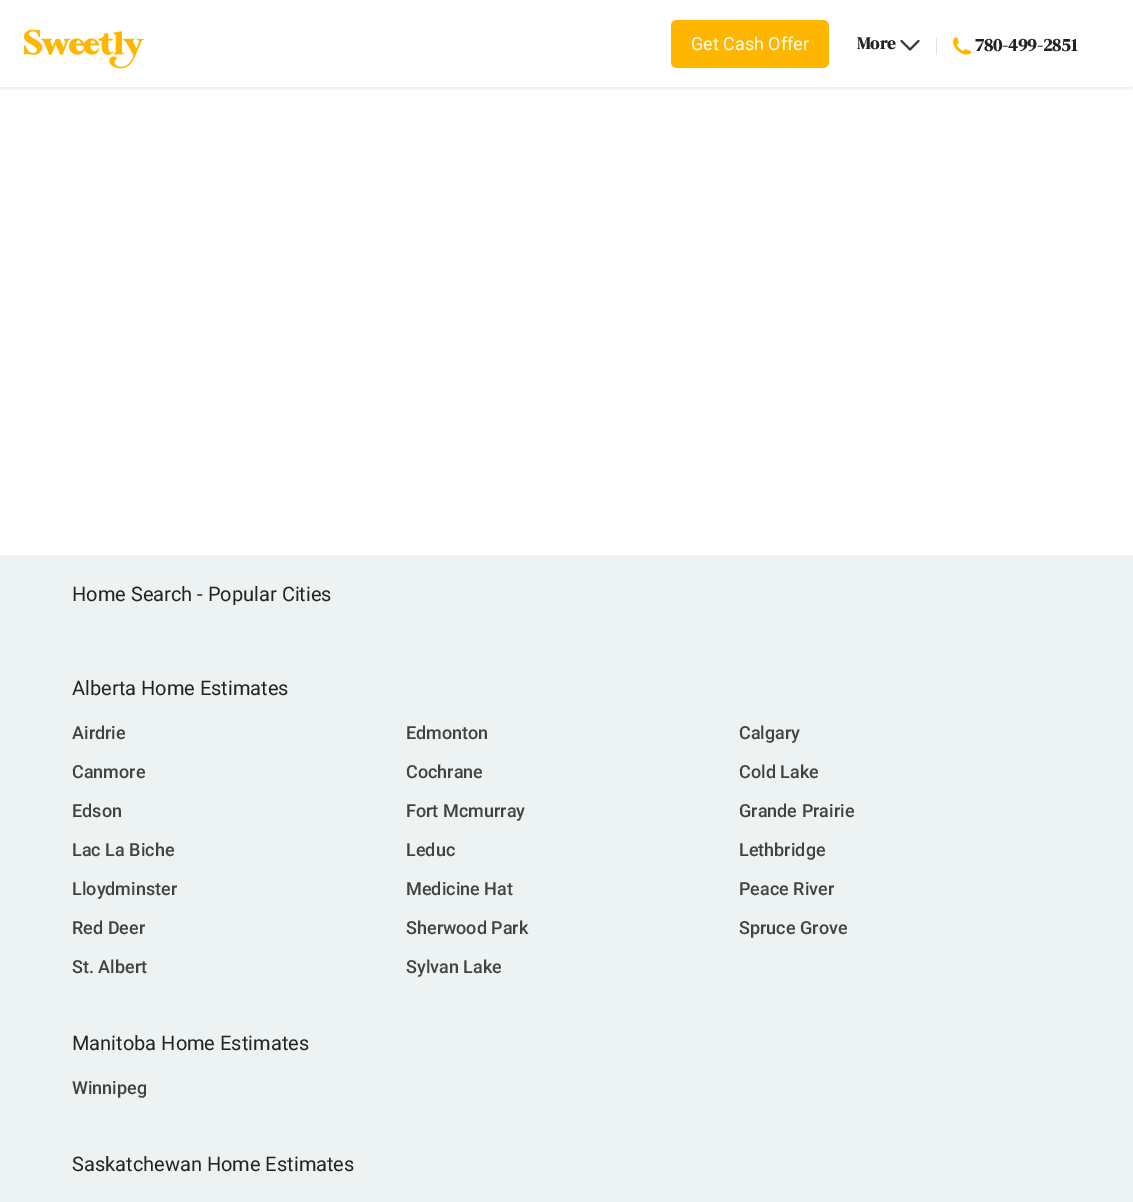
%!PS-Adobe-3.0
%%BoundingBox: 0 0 1133 1202
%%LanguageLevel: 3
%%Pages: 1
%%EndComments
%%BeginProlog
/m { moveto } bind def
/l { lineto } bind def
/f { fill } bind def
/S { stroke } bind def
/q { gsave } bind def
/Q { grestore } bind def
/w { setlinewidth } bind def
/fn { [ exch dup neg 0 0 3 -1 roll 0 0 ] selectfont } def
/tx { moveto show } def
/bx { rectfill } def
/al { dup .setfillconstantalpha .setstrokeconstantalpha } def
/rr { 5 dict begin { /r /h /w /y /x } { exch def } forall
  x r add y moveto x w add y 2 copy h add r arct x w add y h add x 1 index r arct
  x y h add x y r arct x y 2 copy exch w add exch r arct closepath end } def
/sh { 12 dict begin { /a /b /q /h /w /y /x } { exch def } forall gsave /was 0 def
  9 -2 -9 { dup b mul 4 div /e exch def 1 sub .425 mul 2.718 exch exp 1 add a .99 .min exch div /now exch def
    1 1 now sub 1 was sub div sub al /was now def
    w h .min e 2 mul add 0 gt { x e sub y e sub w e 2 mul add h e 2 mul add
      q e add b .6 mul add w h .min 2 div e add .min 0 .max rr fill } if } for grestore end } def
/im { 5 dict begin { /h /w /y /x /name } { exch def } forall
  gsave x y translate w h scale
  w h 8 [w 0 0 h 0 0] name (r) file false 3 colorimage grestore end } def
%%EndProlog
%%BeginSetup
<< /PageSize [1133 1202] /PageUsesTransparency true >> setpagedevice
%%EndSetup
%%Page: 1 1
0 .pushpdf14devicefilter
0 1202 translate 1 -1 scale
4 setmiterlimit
1 setgray
0 0 1133 1202 bx
q
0 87 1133 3 rectclip
0 setgray
0 2 1133 87 0 2 0.07 sh
Q
(image0.raw) 24 29 120 40 im
1 0.714 0 setrgbcolor
671 20 158 48 6 rr f
/Roboto-Regular 18 fn
1 setgray
(Get Cash Offer) 691 50 tx
/DMSerifDisplay-Bold 17 fn
0.137 setgray
(More) 857 49 tx
0.224 0.216 0.216 setrgbcolor
2.1 w
1 setlinecap
1 setlinejoin
918.5 41 m 910 49.5 l 901.5 41 l S
(image1.raw) 953 37 18 18 im
/DMSerifDisplay-Bold 18 fn
0.137 setgray
(780-499-2851) 975 51 tx
0.871 0.886 0.902 setrgbcolor
936 37 1 18 bx
0.929 0.953 0.949 setrgbcolor
0 555 1133 647 bx
/Roboto-Regular 20 fn
0.137 setgray
(Home Search - Popular Cities) 72 601 tx
(Alberta Home Estimates) 72 695 tx
/Roboto-Medium 18 fn
0.263 0.259 0.259 setrgbcolor
(Airdrie) 72 739 tx
(Edmonton) 406 739 tx
(Calgary) 739 739 tx
(Canmore) 72 778 tx
(Cochrane) 406 778 tx
(Cold Lake) 739 778 tx
(Edson) 72 817 tx
(Fort Mcmurray) 406 817 tx
(Grande Prairie) 739 817 tx
(Lac La Biche) 72 856 tx
(Leduc) 406 856 tx
(Lethbridge) 739 856 tx
(Lloydminster) 72 895 tx
(Medicine Hat) 406 895 tx
(Peace River) 739 895 tx
(Red Deer) 72 934 tx
(Sherwood Park) 406 934 tx
(Spruce Grove) 739 934 tx
(St. Albert) 72 973 tx
(Sylvan Lake) 406 973 tx
/Roboto-Regular 20 fn
0.137 setgray
(Manitoba Home Estimates) 72 1050 tx
/Roboto-Medium 18 fn
0.263 0.259 0.259 setrgbcolor
(Winnipeg) 72 1094 tx
/Roboto-Regular 20 fn
0.137 setgray
(Saskatchewan Home Estimates) 72 1171 tx
.poppdf14devicefilter showpage
%%EOF
